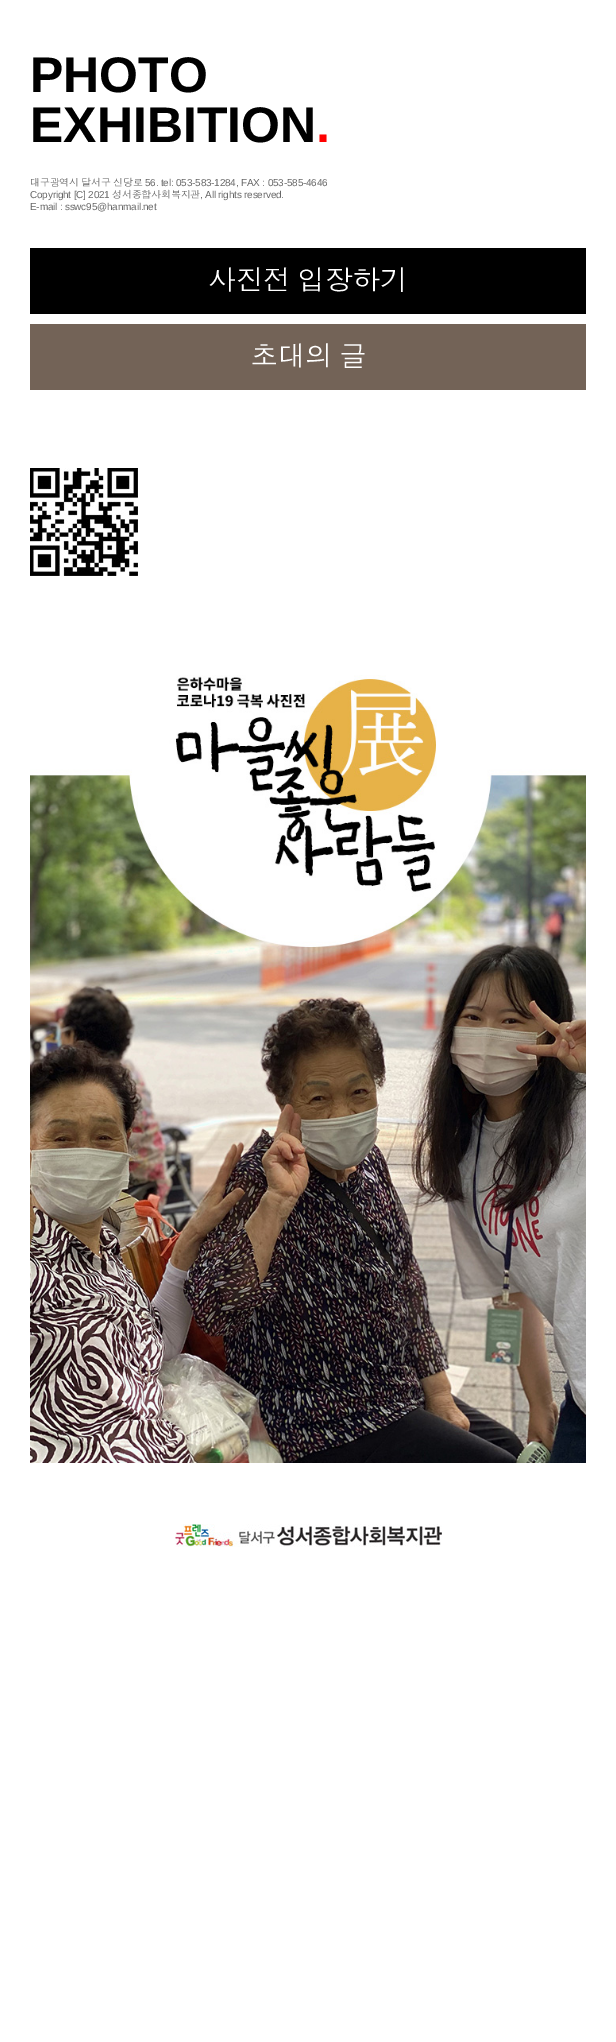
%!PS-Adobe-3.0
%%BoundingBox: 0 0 616 2042
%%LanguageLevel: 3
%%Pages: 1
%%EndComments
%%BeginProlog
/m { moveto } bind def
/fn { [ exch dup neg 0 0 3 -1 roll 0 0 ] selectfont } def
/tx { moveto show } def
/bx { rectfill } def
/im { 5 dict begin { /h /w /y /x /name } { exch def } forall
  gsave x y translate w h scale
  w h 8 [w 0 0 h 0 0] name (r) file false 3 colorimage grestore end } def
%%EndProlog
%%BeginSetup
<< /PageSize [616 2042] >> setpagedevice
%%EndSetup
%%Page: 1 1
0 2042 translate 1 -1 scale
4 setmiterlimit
1 setgray
0 0 616 2042 bx
/LiberationSans-Bold 50 fn
0 setgray
(PHOTO) 30 92 tx
(EXHIBITION) 30 142 tx
1 0 0 setrgbcolor
(.) 316 142 tx
/Dotum-Regular 10 fn
0.404 setgray
30 186 m -0.2 0 (대구광역시) ashow
81 186 m -0.2 0 (달서구) ashow
113 186 m -0.2 0 (신당로) ashow
/LiberationSans-Regular 10 fn
145 186 m -0.2 0 (56. tel: 053-583-1284, FAX : 053-585-4646) ashow
30 198 m -0.2 0 (Copyright [C] 2021) ashow
/Dotum-Regular 10 fn
112 198 m -0.2 0 (성서종합사회복지관) ashow
/LiberationSans-Regular 10 fn
200 198 m -0.2 0 (, All rights reserved.) ashow
30 210 m -0.2 0 (E-mail : sswc95@hanmail.net) ashow
0 setgray
30 248 556 66 bx
/Dotum-Regular 28 fn
1 setgray
208 290 m -2 0 32 -0.5 0 (사진전 입장하기) awidthshow
0.451 0.388 0.341 setrgbcolor
30 324 556 66 bx
1 setgray
250 366 m -2 0 32 -0.5 0 (초대의 글) awidthshow
(image0.raw) 30 468 108 108 im
(image1.raw) 30 675 556 788 im
(image2.raw) 175 1524 267 23 im
showpage
%%EOF
